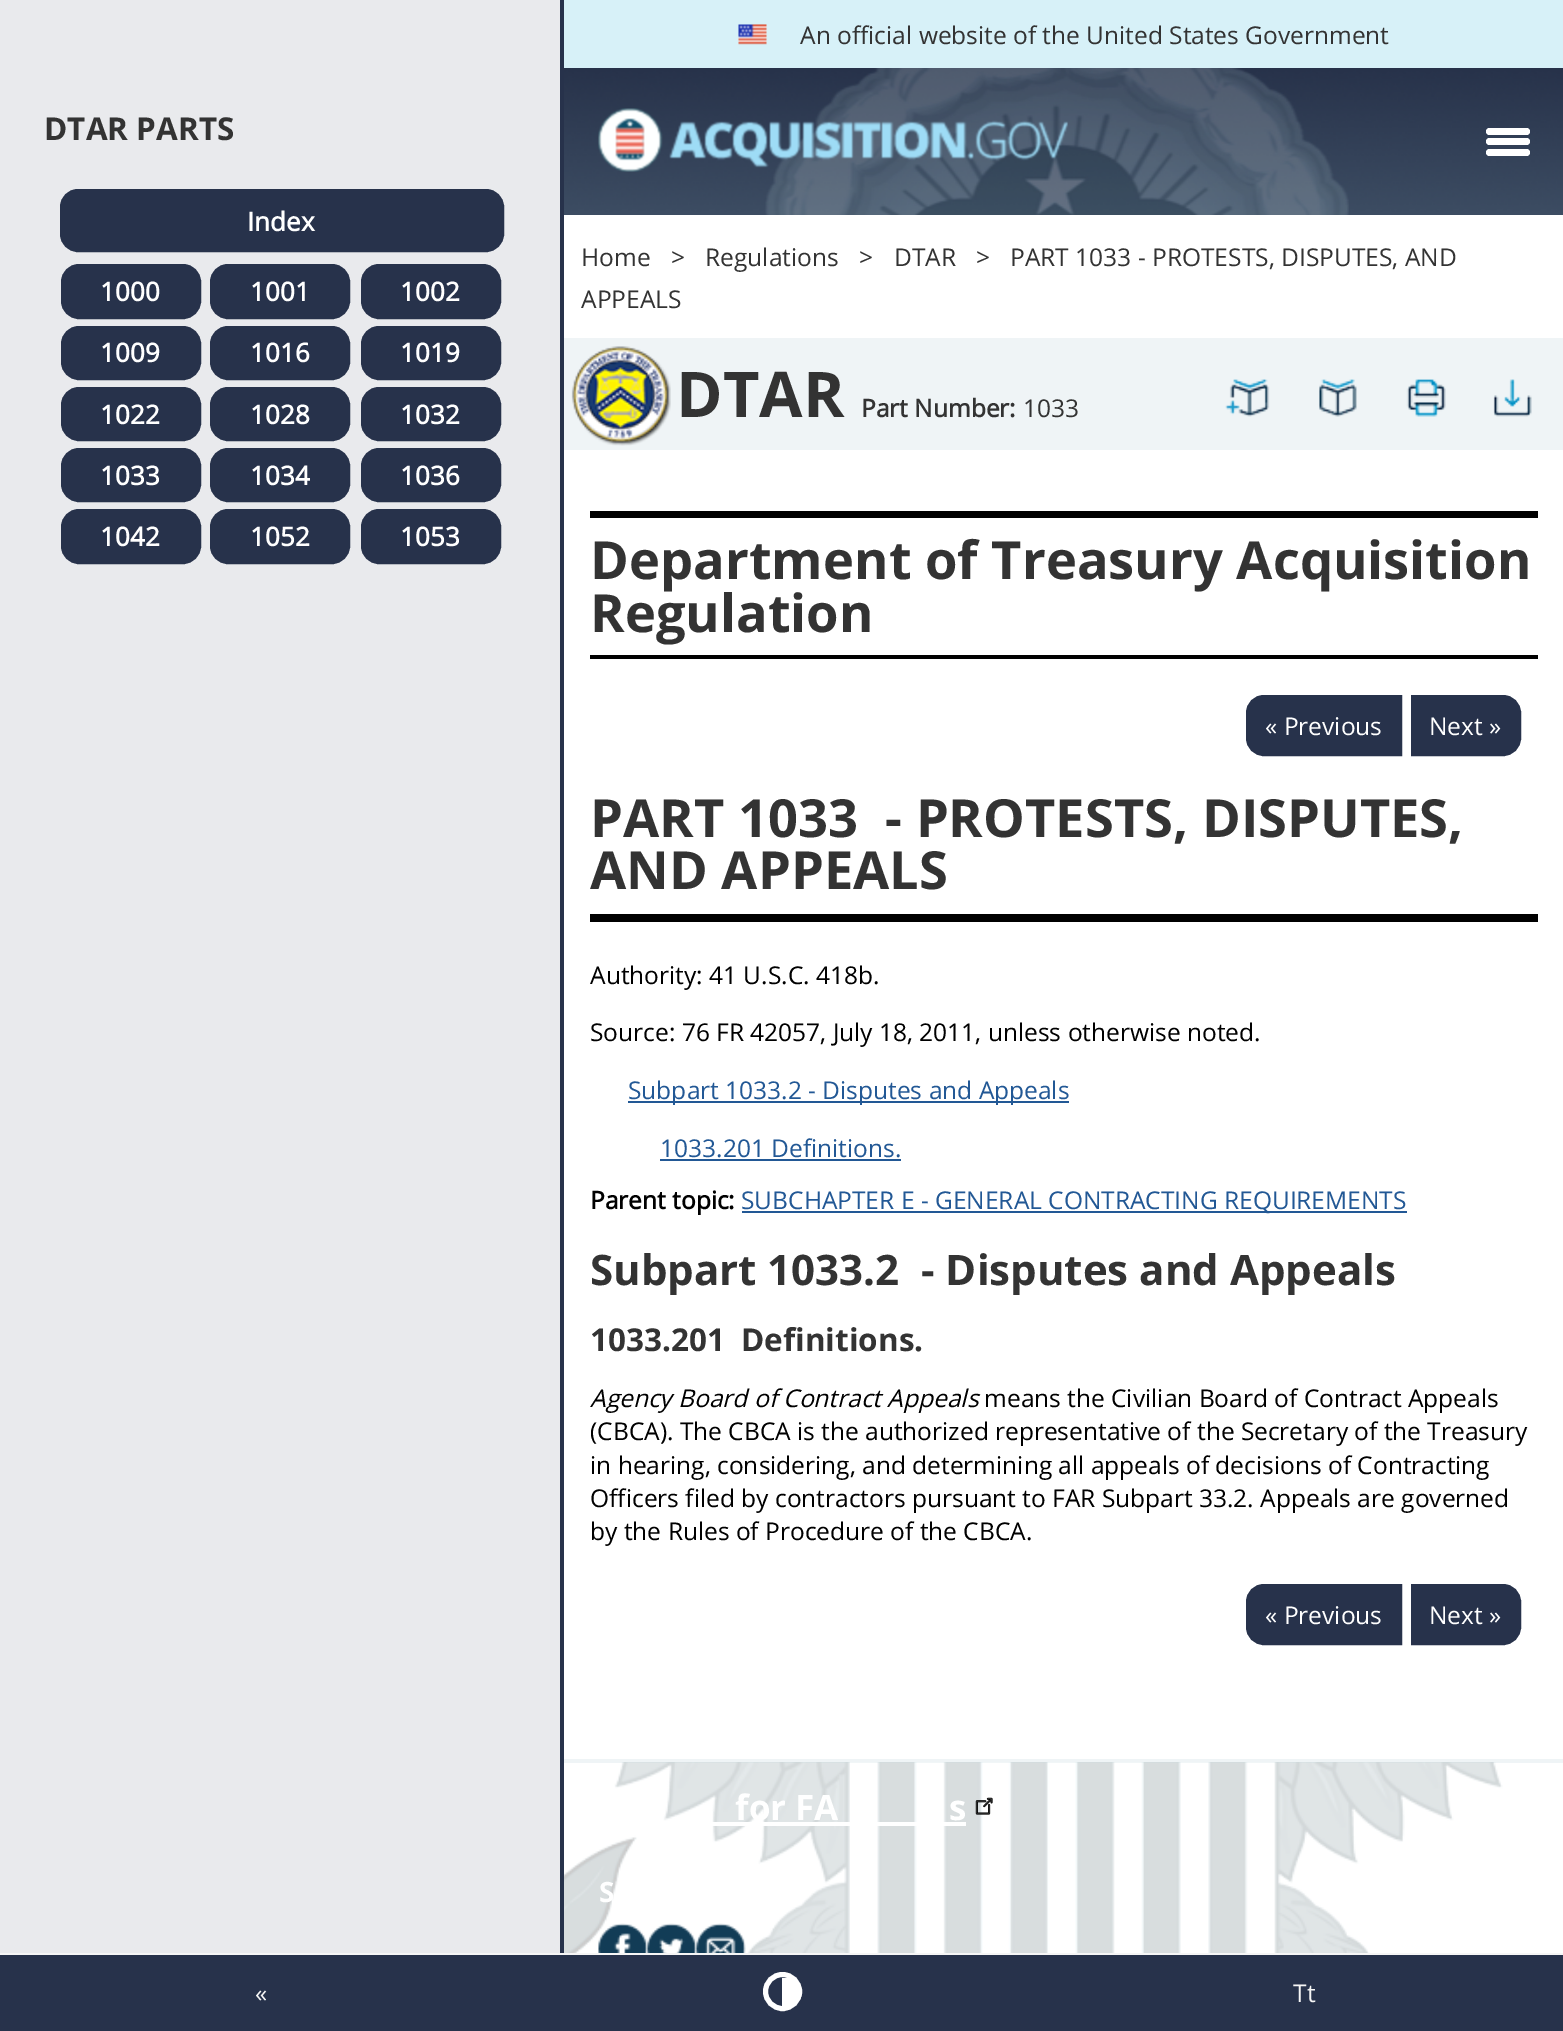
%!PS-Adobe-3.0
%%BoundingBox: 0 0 1563 2031
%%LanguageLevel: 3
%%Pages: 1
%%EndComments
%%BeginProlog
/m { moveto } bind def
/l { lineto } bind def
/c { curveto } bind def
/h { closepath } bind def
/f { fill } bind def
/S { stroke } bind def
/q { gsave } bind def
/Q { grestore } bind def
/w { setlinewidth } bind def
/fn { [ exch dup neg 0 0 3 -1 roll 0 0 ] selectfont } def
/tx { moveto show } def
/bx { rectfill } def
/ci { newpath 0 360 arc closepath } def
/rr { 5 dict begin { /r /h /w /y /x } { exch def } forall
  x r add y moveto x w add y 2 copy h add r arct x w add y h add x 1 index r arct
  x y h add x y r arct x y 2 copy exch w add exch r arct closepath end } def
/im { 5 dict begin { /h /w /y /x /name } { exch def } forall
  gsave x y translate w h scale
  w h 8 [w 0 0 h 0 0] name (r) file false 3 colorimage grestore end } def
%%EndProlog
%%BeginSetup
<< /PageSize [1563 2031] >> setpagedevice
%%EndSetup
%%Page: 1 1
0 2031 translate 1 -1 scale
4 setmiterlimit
1 setgray
0 0 1563 2031 bx
0.843 0.945 0.973 setrgbcolor
564 0 999 68 bx
(image0.raw) 738 24 29 21 im
/OpenSans-Regular 24.5 fn
0.2 setgray
(An official website of the United States Government) 800 44 tx
(image1.raw) 564 68 999 147 im
(image2.raw) 765 68 584 147 im
(image3.raw) 598 108 470 64 im
1 setgray
1486 138 44 7 3.5 rr f
1486 128 44 7 3.5 rr f
1486 149 44 7 3.5 rr f
0.914 0.918 0.929 setrgbcolor
0 0 560 1953 bx
0.153 0.196 0.294 setrgbcolor
560 0 4 1953 bx
/OpenSans-Bold 31.5 fn
0.2 setgray
(DTAR PARTS) 44 140 tx
0.153 0.196 0.294 setrgbcolor
61 190 442 61 17 rr q f Q
2 w
S
/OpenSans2-Bold 26 fn
1 setgray
(Index) 247 231 tx
0.153 0.196 0.294 setrgbcolor
62 265 138 53 17 rr q f Q
S
1 setgray
(1000) 100 301 tx
0.153 0.196 0.294 setrgbcolor
211 265 138 53 17 rr q f Q
S
1 setgray
(1001) 250 301 tx
0.153 0.196 0.294 setrgbcolor
362 265 138 53 17 rr q f Q
S
1 setgray
(1002) 400 301 tx
0.153 0.196 0.294 setrgbcolor
62 327 138 52 17 rr q f Q
S
1 setgray
(1009) 100 362 tx
0.153 0.196 0.294 setrgbcolor
211 327 138 52 17 rr q f Q
S
1 setgray
(1016) 250 362 tx
0.153 0.196 0.294 setrgbcolor
362 327 138 52 17 rr q f Q
S
1 setgray
(1019) 400 362 tx
0.153 0.196 0.294 setrgbcolor
62 388 138 52 17 rr q f Q
S
1 setgray
(1022) 100 424 tx
0.153 0.196 0.294 setrgbcolor
211 388 138 52 17 rr q f Q
S
1 setgray
(1028) 250 424 tx
0.153 0.196 0.294 setrgbcolor
362 388 138 52 17 rr q f Q
S
1 setgray
(1032) 400 424 tx
0.153 0.196 0.294 setrgbcolor
62 449 138 52 17 rr q f Q
S
1 setgray
(1033) 100 485 tx
0.153 0.196 0.294 setrgbcolor
211 449 138 52 17 rr q f Q
S
1 setgray
(1034) 250 485 tx
0.153 0.196 0.294 setrgbcolor
362 449 138 52 17 rr q f Q
S
1 setgray
(1036) 400 485 tx
0.153 0.196 0.294 setrgbcolor
62 510 138 53 17 rr q f Q
S
1 setgray
(1042) 100 546 tx
0.153 0.196 0.294 setrgbcolor
211 510 138 53 17 rr q f Q
S
1 setgray
(1052) 250 546 tx
0.153 0.196 0.294 setrgbcolor
362 510 138 53 17 rr q f Q
S
1 setgray
(1053) 400 546 tx
/OpenSans-Regular 24.5 fn
0.2 setgray
(Home) 581 266 tx
(>) 671 266 tx
(Regulations) 705 266 tx
(>) 859 266 tx
(DTAR) 894 266 tx
(>) 976 266 tx
(PART 1033 - PROTESTS, DISPUTES, AND) 1010 266 tx
(APPEALS) 581 308 tx
0.937 0.957 0.965 setrgbcolor
564 338 999 112 bx
(image4.raw) 571 346 100 100 im
/OpenSans-Bold 63 fn
0.2 setgray
(DTAR) 676 417 tx
/OpenSans2-Bold 24.5 fn
(Part Number:) 861 417 tx
/OpenSans-Regular 24.5 fn
(1033) 1023 417 tx
(image5.raw) 1225 379 45 38 im
(image6.raw) 1319 379 38 38 im
(image7.raw) 1406 379 40 38 im
(image8.raw) 1493 379 39 38 im
0 setgray
590 511 948 7 bx
590 655 948 4 bx
/OpenSans-Bold 52.5 fn
0.2 setgray
(Department of Treasury Acquisition) 590 579 tx
(Regulation) 590 632 tx
0.153 0.196 0.294 setrgbcolor
1264 696 m 1401 696 l 1401 755 l 1264 755 l 1254.5 755 1247 747.5 1247 738 c 1247 713 l 1247 703.5 1254.5 696 1264 696 c h q f Q
S
/OpenSans-Regular 24.5 fn
1 setgray
(« Previous) 1265 735 tx
0.153 0.196 0.294 setrgbcolor
1412 696 m 1503 696 l 1512.5 696 1520 703.5 1520 713 c 1520 738 l 1520 747.5 1512.5 755 1503 755 c 1412 755 l h q f Q
S
1 setgray
(Next ») 1429 735 tx
0 setgray
590 914 948 8 bx
/OpenSans-Bold 52.5 fn
0.2 setgray
(PART 1033) 590 837 tx
(- PROTESTS, DISPUTES,) 885 837 tx
(AND APPEALS) 590 889 tx
/OpenSans-Regular 24.5 fn
0 setgray
(Authority: 41 U.S.C. 418b.) 590 984 tx
(Source: 76 FR 42057, July 18, 2011, unless otherwise noted.) 590 1041 tx
0.133 0.345 0.584 setrgbcolor
628 1101 441 2 bx
(Subpart 1033.2 - Disputes and Appeals) 628 1099 tx
(1033.201 Definitions.) 660 1157 tx
660 1159 241 2 bx
/OpenSans2-Bold 24.5 fn
0 setgray
(Parent topic:) 590 1209 tx
0.133 0.345 0.584 setrgbcolor
742 1211 665 2 bx
/OpenSans-Regular 24.5 fn
(SUBCHAPTER E - GENERAL CONTRACTING REQUIREMENTS) 741 1209 tx
/OpenSans-Bold 42 fn
0.2 setgray
(Subpart 1033.2) 590 1285 tx
(- Disputes and Appeals) 921 1285 tx
/OpenSans-Bold 31.5 fn
(1033.201) 590 1351 tx
(Definitions.) 741 1351 tx
/OpenSans-Italic 24.5 fn
0 setgray
(Agency Board of Contract Appeals) 590 1407 tx
/OpenSans-Regular 24.5 fn
(means the Civilian Board of Contract Appeals) 984 1407 tx
(\(CBCA\). The CBCA is the authorized representative of the Secretary of the Treasury) 590 1440 tx
(in hearing, considering, and determining all appeals of decisions of Contracting) 590 1474 tx
(Officers filed by contractors pursuant to FAR Subpart 33.2. Appeals are governed) 590 1507 tx
(by the Rules of Procedure of the CBCA.) 590 1540 tx
0.153 0.196 0.294 setrgbcolor
1264 1585 m 1401 1585 l 1401 1644 l 1264 1644 l 1254.5 1644 1247 1636.5 1247 1627 c 1247 1602 l 1247 1592.5 1254.5 1585 1264 1585 c h q f Q
S
1 setgray
(« Previous) 1265 1624 tx
0.153 0.196 0.294 setrgbcolor
1412 1585 m 1503 1585 l 1512.5 1585 1520 1592.5 1520 1602 c 1520 1627 l 1520 1636.5 1512.5 1644 1503 1644 c 1412 1644 l h q f Q
S
1 setgray
(Next ») 1429 1624 tx
0.937 0.957 0.965 setrgbcolor
564 1759 999 4 bx
(image9.raw) 564 1762 939 191 im
/OpenSans-Bold 35 fn
1 setgray
(for FA) 735 1820 tx
(s) 949 1820 tx
712 1822 254 4 bx
(image10.raw) 975 1797 18 18 im
/OpenSans-Bold 28 fn
(S) 599 1902 tx
(image11.raw) 598 1923 50 30 im
(image12.raw) 647 1923 50 30 im
(image13.raw) 696 1923 50 30 im
0.153 0.196 0.294 setrgbcolor
0 1955 1563 76 bx
0.965 setgray
0 1953 1563 2 bx
/OpenSans-Regular 24.5 fn
(«) 255 2002 tx
1 setgray
5 w
782.5 1991.5 17 ci S
782 1978 m 788 1978 l 795.5 1978 802 1984.5 802 1992 c 802 1999.5 795.5 2006 788 2006 c 782 2006 l h f
0.965 setgray
(Tt) 1293 2002 tx
showpage
%%EOF
